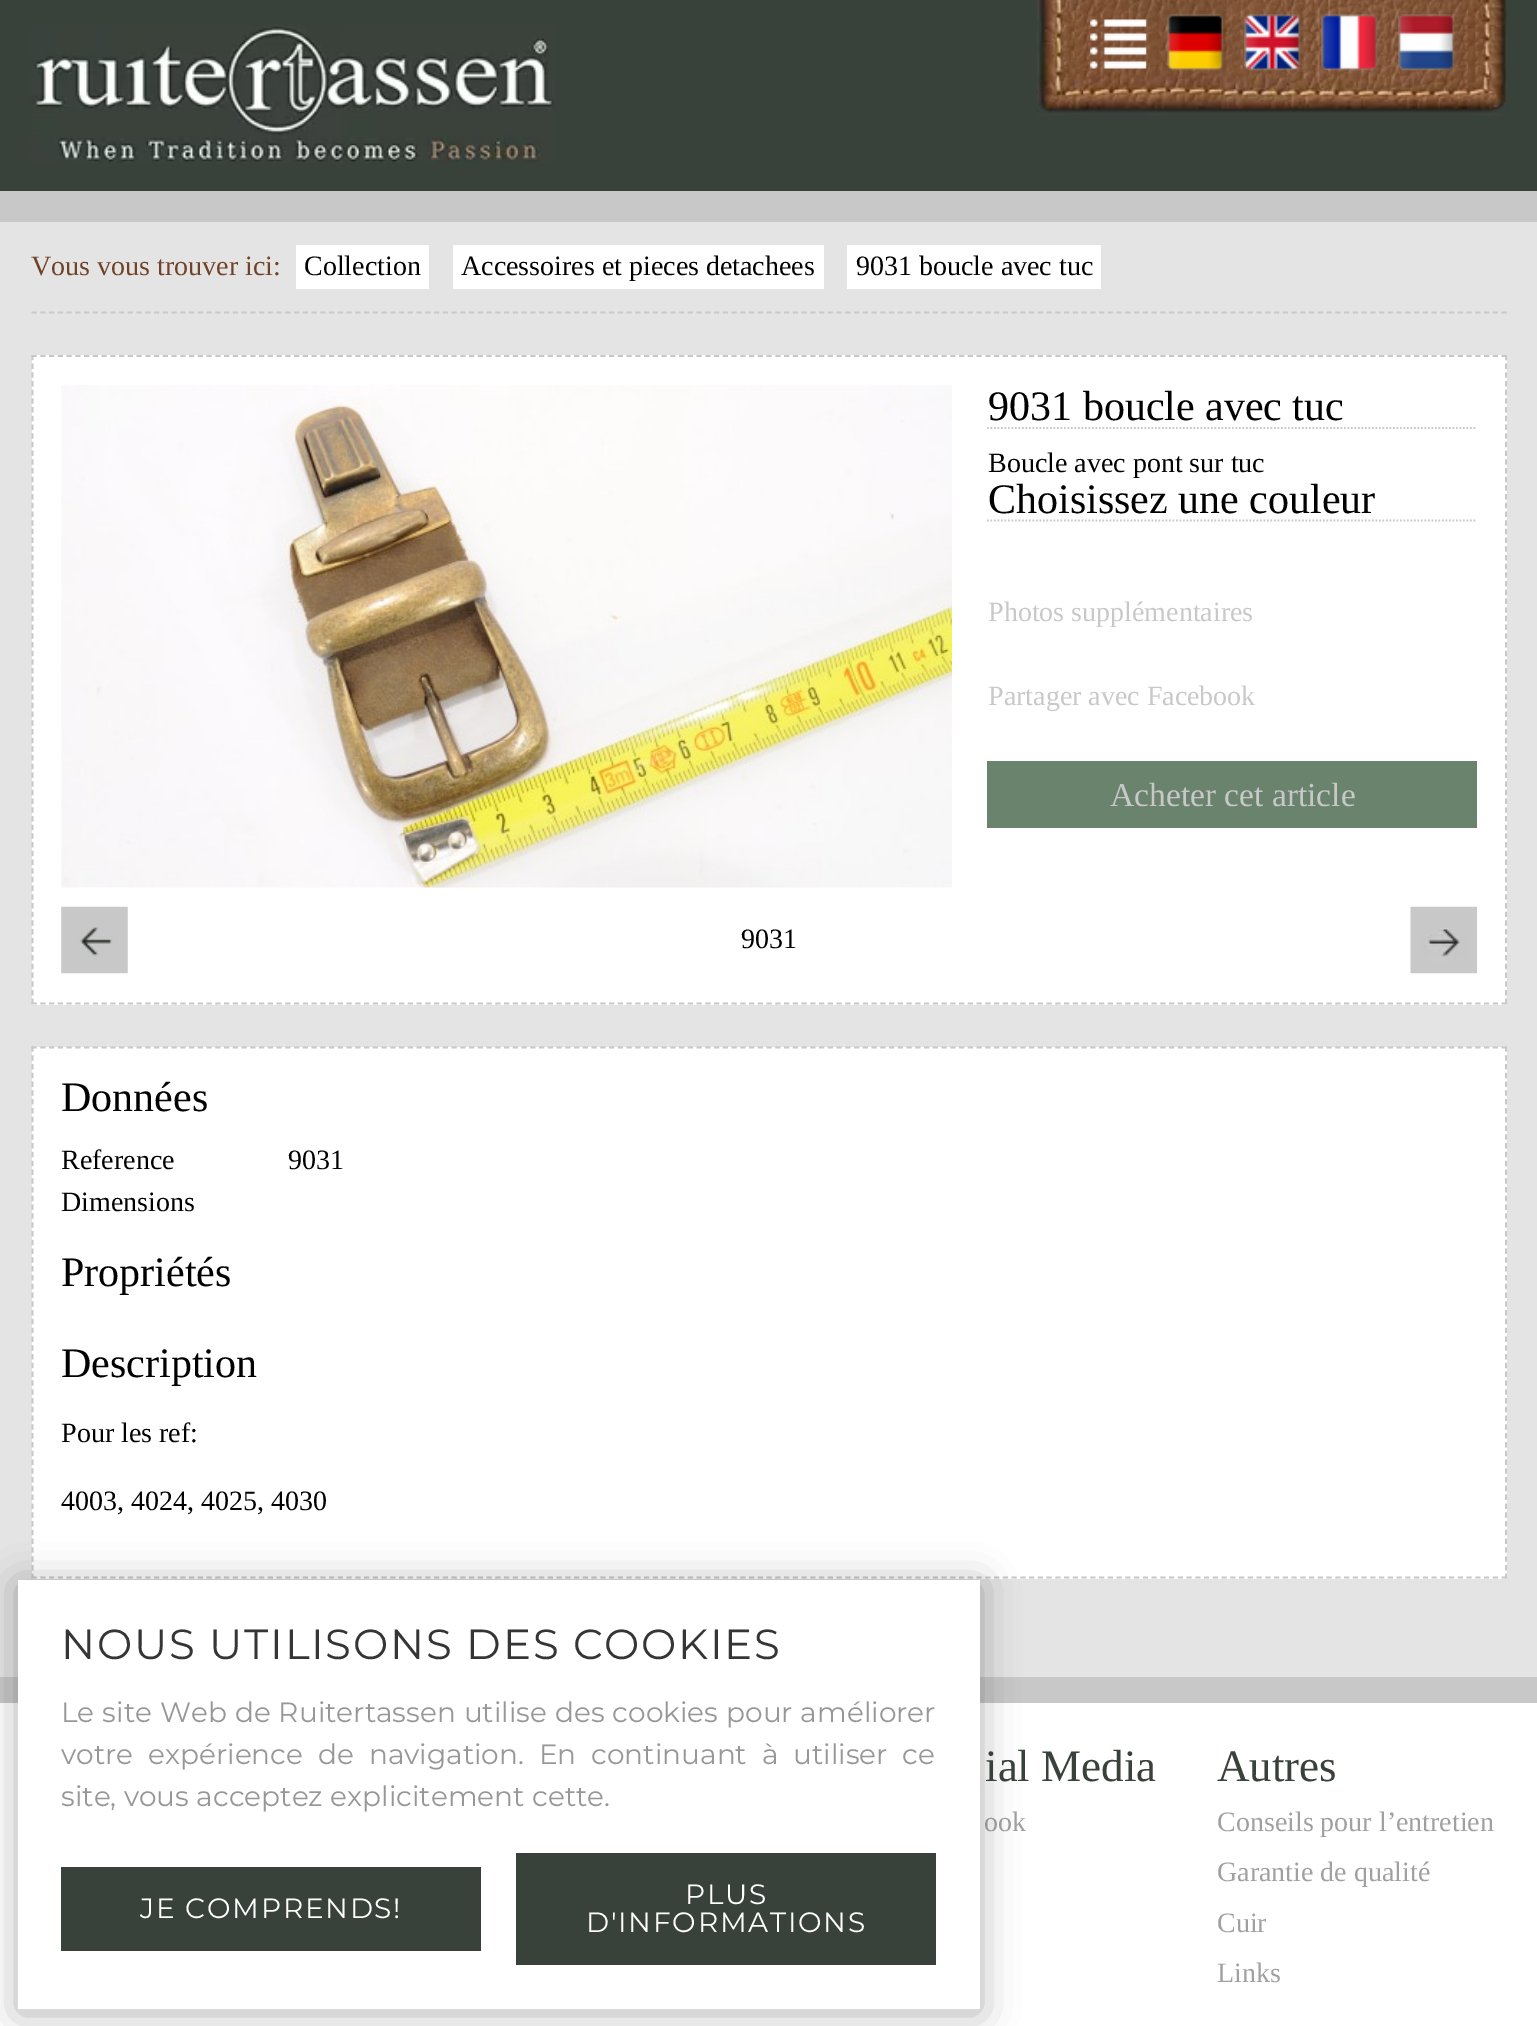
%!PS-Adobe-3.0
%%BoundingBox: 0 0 1537 2026
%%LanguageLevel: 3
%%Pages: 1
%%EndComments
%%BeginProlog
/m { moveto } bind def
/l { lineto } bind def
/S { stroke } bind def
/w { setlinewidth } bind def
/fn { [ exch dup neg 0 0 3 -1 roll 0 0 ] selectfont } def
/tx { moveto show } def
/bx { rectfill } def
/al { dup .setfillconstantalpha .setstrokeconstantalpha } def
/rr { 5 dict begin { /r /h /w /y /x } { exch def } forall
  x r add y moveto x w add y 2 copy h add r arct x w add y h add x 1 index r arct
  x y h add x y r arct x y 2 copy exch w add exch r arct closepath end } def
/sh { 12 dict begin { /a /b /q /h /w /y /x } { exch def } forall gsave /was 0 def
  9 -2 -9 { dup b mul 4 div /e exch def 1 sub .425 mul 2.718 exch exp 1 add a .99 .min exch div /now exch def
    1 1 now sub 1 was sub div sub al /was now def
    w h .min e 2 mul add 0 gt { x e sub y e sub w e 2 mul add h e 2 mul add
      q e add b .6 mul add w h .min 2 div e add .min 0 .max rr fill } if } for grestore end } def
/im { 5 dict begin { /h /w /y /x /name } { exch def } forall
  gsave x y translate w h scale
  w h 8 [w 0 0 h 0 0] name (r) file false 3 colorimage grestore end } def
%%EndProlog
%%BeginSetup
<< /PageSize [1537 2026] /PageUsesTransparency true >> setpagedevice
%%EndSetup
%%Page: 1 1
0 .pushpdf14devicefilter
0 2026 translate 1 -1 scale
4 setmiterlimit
0.894 setgray
0 0 1537 2026 bx
0.224 0.259 0.227 setrgbcolor
0 0 1537 191 bx
0.784 setgray
0 191 1537 31 bx
(image0.raw) 31 25 524 138 im
(image1.raw) 1037 0 470 116 im
(image2.raw) 1037 0 47 114 im
(image3.raw) 1090 19 57 50 im
(image4.raw) 1167 14 57 57 im
(image5.raw) 1244 14 57 57 im
(image6.raw) 1321 14 57 57 im
(image7.raw) 1398 14 57 57 im
(image8.raw) 1468 0 39 114 im
0.788 setgray
1.8 w
[5.25 3.5] 0 setdash
31.5 312.5 m 1507 312.5 l S
/LiberationSerif-Regular 28 fn
0.439 0.263 0.161 setrgbcolor
(Vous vous trouver ici:) 31 275 tx
1 setgray
296 245 133 44 bx
0 setgray
(Collection) 304 275 tx
1 setgray
453 245 371 44 bx
0 setgray
(Accessoires et pieces detachees) 461 275 tx
1 setgray
847 245 254 44 bx
0 setgray
(9031 boucle avec tuc) 856 275 tx
1 setgray
32 355 1475 650 bx
0.784 setgray
31.5 356 m 1507 356 l S
[5.25 3.45] 0 setdash
1506 355 m 1506 1004.5 l S
[5.25 3.5] 0 setdash
31.5 1003.5 m 1507 1003.5 l S
[5.25 3.45] 0 setdash
32.5 355 m 32.5 1004.5 l S
(image9.raw) 61 385 891 503 im
[1.75 1.75] 0 setdash
987 428 m 1477 428 l S
/LiberationSerif-Regular 42 fn
0 setgray
(9031 boucle avec tuc) 988 420 tx
/LiberationSerif-Regular 28 fn
(Boucle avec pont sur tuc) 988 472 tx
0.784 setgray
987 520.5 m 1477 520.5 l S
/LiberationSerif-Regular 42 fn
0 setgray
(Choisissez une couleur) 988 513 tx
/LiberationSerif-Regular 28 fn
0.784 setgray
(Photos supplémentaires) 988 621 tx
(Partager avec Facebook) 988 705 tx
0.412 0.514 0.424 setrgbcolor
987 761 490 67 bx
/LiberationSerif-Regular 33.5 fn
0.784 setgray
(Acheter cet article) 1110 806 tx
(image10.raw) 61 906 67 68 im
/LiberationSerif-Regular 28 fn
0 setgray
(9031) 741 948 tx
(image11.raw) 1410 906 67 68 im
1 setgray
32 1047 1475 532 bx
0.784 setgray
[5.25 3.5] 0 setdash
31.5 1047.5 m 1507 1047.5 l S
[5.25 3.54] 0 setdash
1506 1046.5 m 1506 1578.5 l S
[5.25 3.5] 0 setdash
31.5 1577.5 m 1507 1577.5 l S
[5.25 3.54] 0 setdash
32.5 1046.5 m 32.5 1578.5 l S
/LiberationSerif-Regular 42 fn
0 setgray
(Données) 61 1111 tx
/LiberationSerif-Regular 28 fn
(Reference) 61 1169 tx
(9031) 288 1169 tx
(Dimensions) 61 1211 tx
/LiberationSerif-Regular 42 fn
(Propriétés) 61 1286 tx
(Description) 61 1377 tx
/LiberationSerif-Regular 28 fn
(Pour les ref:) 61 1442 tx
(4003, 4024, 4025, 4030) 61 1510 tx
1 setgray
0 1703 1537 323 bx
0.784 setgray
0 1677 1537 26 bx
/LiberationSerif-Regular 45 fn
0.224 0.259 0.227 setrgbcolor
(ial Media) 985 1781 tx
/LiberationSerif-Regular 28 fn
0.627 setgray
(ook) 984 1831 tx
/LiberationSerif-Regular 45 fn
0.224 0.259 0.227 setrgbcolor
(Autres) 1217 1781 tx
/LiberationSerif-Regular 28 fn
0.627 setgray
(Conseils pour l’entretien) 1217 1831 tx
(Garantie de qualité) 1217 1881 tx
(Cuir) 1217 1932 tx
(Links) 1217 1982 tx
0.239 setgray
18 1584 962 429 0 19 0.41 sh
1 setgray
18 1580 962 429 bx
/Montserrat-Regular 42 fn
0.208 setgray
61 1659 m 1.75 0 (NOUS UTILISONS DES COOKIES) ashow
/Montserrat-Regular 28 fn
0.592 setgray
61 1722 m 0.6 0 32 (Le site Web de Ruitertassen utilise des cookies pour améliorer) widthshow
61 1764 m 7.5 0 32 (votre expérience de navigation. En continuant à utiliser ce) widthshow
(site, vous acceptez explicitement cette.) 61 1806 tx
0.224 0.259 0.227 setrgbcolor
61 1867 420 84 bx
1 setgray
140 1918 m 1.75 0 (JE COMPRENDS!) ashow
0.224 0.259 0.227 setrgbcolor
516 1853 420 112 bx
1 setgray
685 1904 m 1.75 0 (PLUS) ashow
586 1932 m 1.75 0 (D'INFORMATIONS) ashow
.poppdf14devicefilter showpage
%%EOF
